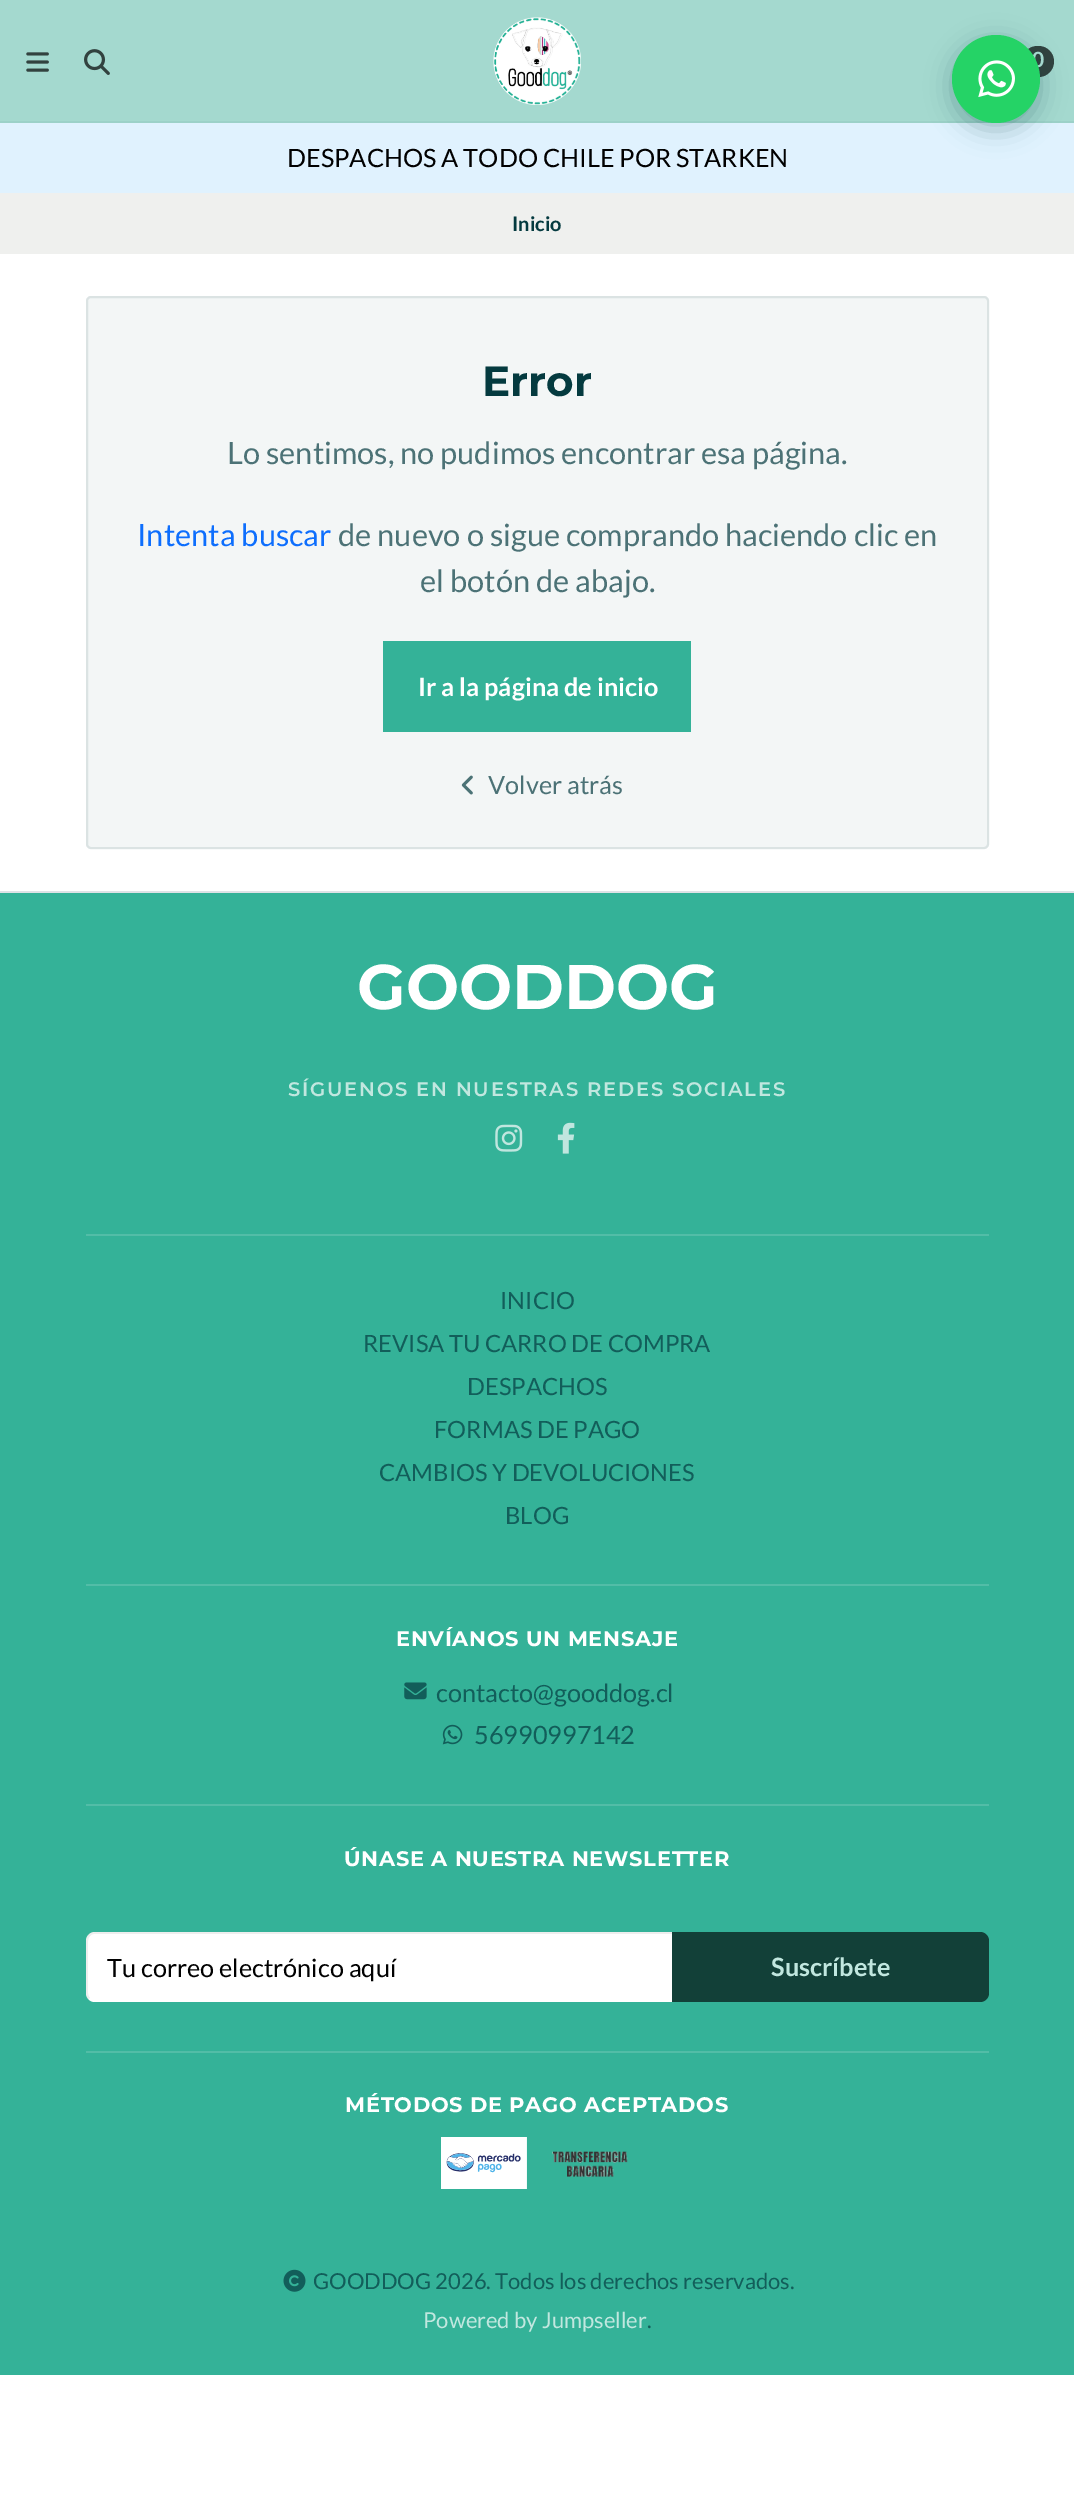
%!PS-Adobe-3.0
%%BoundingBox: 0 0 1074 2504
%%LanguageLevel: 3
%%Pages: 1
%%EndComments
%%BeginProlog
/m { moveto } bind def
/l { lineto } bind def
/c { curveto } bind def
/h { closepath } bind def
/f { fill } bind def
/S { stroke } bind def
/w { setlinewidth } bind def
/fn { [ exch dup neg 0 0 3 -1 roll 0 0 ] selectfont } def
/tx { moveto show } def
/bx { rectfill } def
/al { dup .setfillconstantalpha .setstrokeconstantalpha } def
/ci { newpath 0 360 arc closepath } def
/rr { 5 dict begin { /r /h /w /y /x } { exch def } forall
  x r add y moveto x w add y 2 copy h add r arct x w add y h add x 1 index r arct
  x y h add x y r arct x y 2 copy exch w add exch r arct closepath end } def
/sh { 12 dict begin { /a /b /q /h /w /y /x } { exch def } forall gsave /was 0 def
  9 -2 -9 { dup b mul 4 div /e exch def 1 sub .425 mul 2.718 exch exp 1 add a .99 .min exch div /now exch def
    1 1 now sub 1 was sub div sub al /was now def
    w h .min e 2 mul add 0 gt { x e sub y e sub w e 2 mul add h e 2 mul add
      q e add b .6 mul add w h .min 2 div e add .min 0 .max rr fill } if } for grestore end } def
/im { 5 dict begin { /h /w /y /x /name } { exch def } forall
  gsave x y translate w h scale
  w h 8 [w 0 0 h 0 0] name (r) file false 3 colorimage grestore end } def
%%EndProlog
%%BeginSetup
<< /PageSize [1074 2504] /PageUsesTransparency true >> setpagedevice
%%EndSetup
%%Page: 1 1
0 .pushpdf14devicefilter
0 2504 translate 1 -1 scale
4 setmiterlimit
1 setgray
0 0 1074 2504 bx
0.643 0.851 0.812 setrgbcolor
0 0 1074 121 bx
0.612 0.82 0.784 setrgbcolor
0 121 1074 2 bx
0.196 0.259 0.247 setrgbcolor
1022 46 32 31 15.5 rr f
0.878 0.949 0.996 setrgbcolor
0 123 1074 70 bx
0.016 0.227 0.247 setrgbcolor
952 42 88 88 44 13 0.3 sh
/Lato-Bold 21 fn
0.643 0.851 0.812 setrgbcolor
(0) 1032 67 tx
0.145 0.827 0.4 setrgbcolor
996 79 44 ci f
(image0.raw) 978 60 37 38 im
(image1.raw) 26 52 23 20 im
(image2.raw) 84 49 26 26 im
(image3.raw) 493 17 88 88 im
/Lato-Regular 25.25 fn
0.004 setgray
(DESPACHOS A TODO CHILE POR STARKEN) 287 167 tx
0.937 0.941 0.933 setrgbcolor
0 193 1074 61 bx
/Lato-Bold 20 fn
0.016 0.227 0.247 setrgbcolor
(Inicio) 512 231 tx
0.953 0.965 0.965 setrgbcolor
86 296 903 553 5 rr f
0.1 al
0.016 0.227 0.247 setrgbcolor
2 w
87 297 901 551 4 rr S
/Montserrat-Bold 42 fn
1 al
(Error) 482 396 tx
/Lato-Regular 30.8 fn
0.298 0.447 0.463 setrgbcolor
(Lo sentimos, no pudimos encontrar esa página.) 227 464 tx
0.051 0.431 0.992 setrgbcolor
(Intenta buscar) 137 546 tx
0.298 0.447 0.463 setrgbcolor
(de nuevo o sigue comprando haciendo clic en) 338 546 tx
(el botón de abajo.) 420 592 tx
0.204 0.698 0.596 setrgbcolor
383 641 308 91 bx
/Lato-Bold 25.25 fn
1 setgray
(Ir a la página de inicio) 418 696 tx
(image4.raw) 461 775 12 20 im
/Lato-Regular 25.25 fn
0.298 0.447 0.463 setrgbcolor
(Volver atrás) 488 794 tx
0.204 0.698 0.596 setrgbcolor
0 893 1074 1482 bx
0.871 0.886 0.902 setrgbcolor
0 891 1074 2 bx
/Montserrat-Bold 63 fn
1 setgray
(GOODDOG) 357 1009 tx
/Montserrat-SemiBold 19.6 fn
0.757 0.906 0.875 setrgbcolor
288 1096 m 1.75 0 (SÍGUENOS EN NUESTRAS REDES SOCIALES) ashow
(image5.raw) 495 1124 28 28 im
(image6.raw) 557 1122 18 32 im
0.322 0.741 0.655 setrgbcolor
86 1234 903 2 bx
/Lato-Regular 23.75 fn
0.071 0.369 0.353 setrgbcolor
(INICIO) 500 1309 tx
(REVISA TU CARRO DE COMPRA) 363 1352 tx
(DESPACHOS) 467 1395 tx
(FORMAS DE PAGO) 434 1438 tx
(CAMBIOS Y DEVOLUCIONES) 379 1481 tx
(BLOG) 505 1524 tx
0.322 0.741 0.655 setrgbcolor
86 1584 903 2 bx
/Montserrat-Bold 21 fn
1 setgray
396 1646 m 0.7 0 (ENVÍANOS UN MENSAJE) ashow
(image7.raw) 404 1682 23 18 im
/Lato-Regular 25.25 fn
0.071 0.369 0.353 setrgbcolor
(contacto@gooddog.cl) 436 1702 tx
(image8.raw) 442 1724 21 21 im
(56990997142) 474 1744 tx
0.322 0.741 0.655 setrgbcolor
86 1804 903 2 bx
/Montserrat-Bold 21 fn
1 setgray
344 1866 m 0.7 0 (ÚNASE A NUESTRA NEWSLETTER) ashow
95 1932 m 672 1932 l 672 2002 l 95 2002 l 90 2002 86 1998 86 1993 c 86 1941 l 86 1936 90 1932 95 1932 c h f
0.2 al
0.667 setgray
94 1932 m 672 1932 l 672 1934 l 94 1934 l 92 1934 91 1935 90 1936 c 88 1935 l 90 1933 92 1932 94 1932 c h f
1 setgray
672 2002 m 672 2000 l 94 2000 l 92 2000 91 1999 90 1998 c 88 1999 l 90 2001 92 2002 94 2002 c h f
0.667 setgray
90 1998 m 88 1999 l 87 1998 86 1995 86 1993 c 86 1941 l 86 1939 87 1936 88 1935 c 90 1936 l 89 1937 88 1939 88 1941 c 88 1993 l 88 1995 89 1997 90 1998 c h f
/Lato-Regular 25.25 fn
1 al
0.004 setgray
(Tu correo electrónico aquí) 107 1977 tx
0.071 0.251 0.22 setrgbcolor
672 1932 m 980 1932 l 985 1932 989 1936 989 1941 c 989 1993 l 989 1998 985 2002 980 2002 c 672 2002 l h f
/Lato-Bold 25.25 fn
0.757 0.906 0.875 setrgbcolor
(Suscríbete) 771 1976 tx
0.322 0.741 0.655 setrgbcolor
86 2051 903 2 bx
/Montserrat-Bold 21 fn
1 setgray
345 2112 m 0.7 0 (MÉTODOS DE PAGO ACEPTADOS) ashow
(image9.raw) 441 2137 86 52 im
(image10.raw) 552 2150 76 27 im
(image11.raw) 283 2269 23 23 im
/Lato-Regular 22 fn
0.071 0.369 0.353 setrgbcolor
(GOODDOG 2026. Todos los derechos reservados.) 313 2289 tx
0.757 0.906 0.875 setrgbcolor
(Powered by Jumpseller) 423 2328 tx
0.071 0.369 0.353 setrgbcolor
(.) 647 2328 tx
.poppdf14devicefilter showpage
%%EOF
